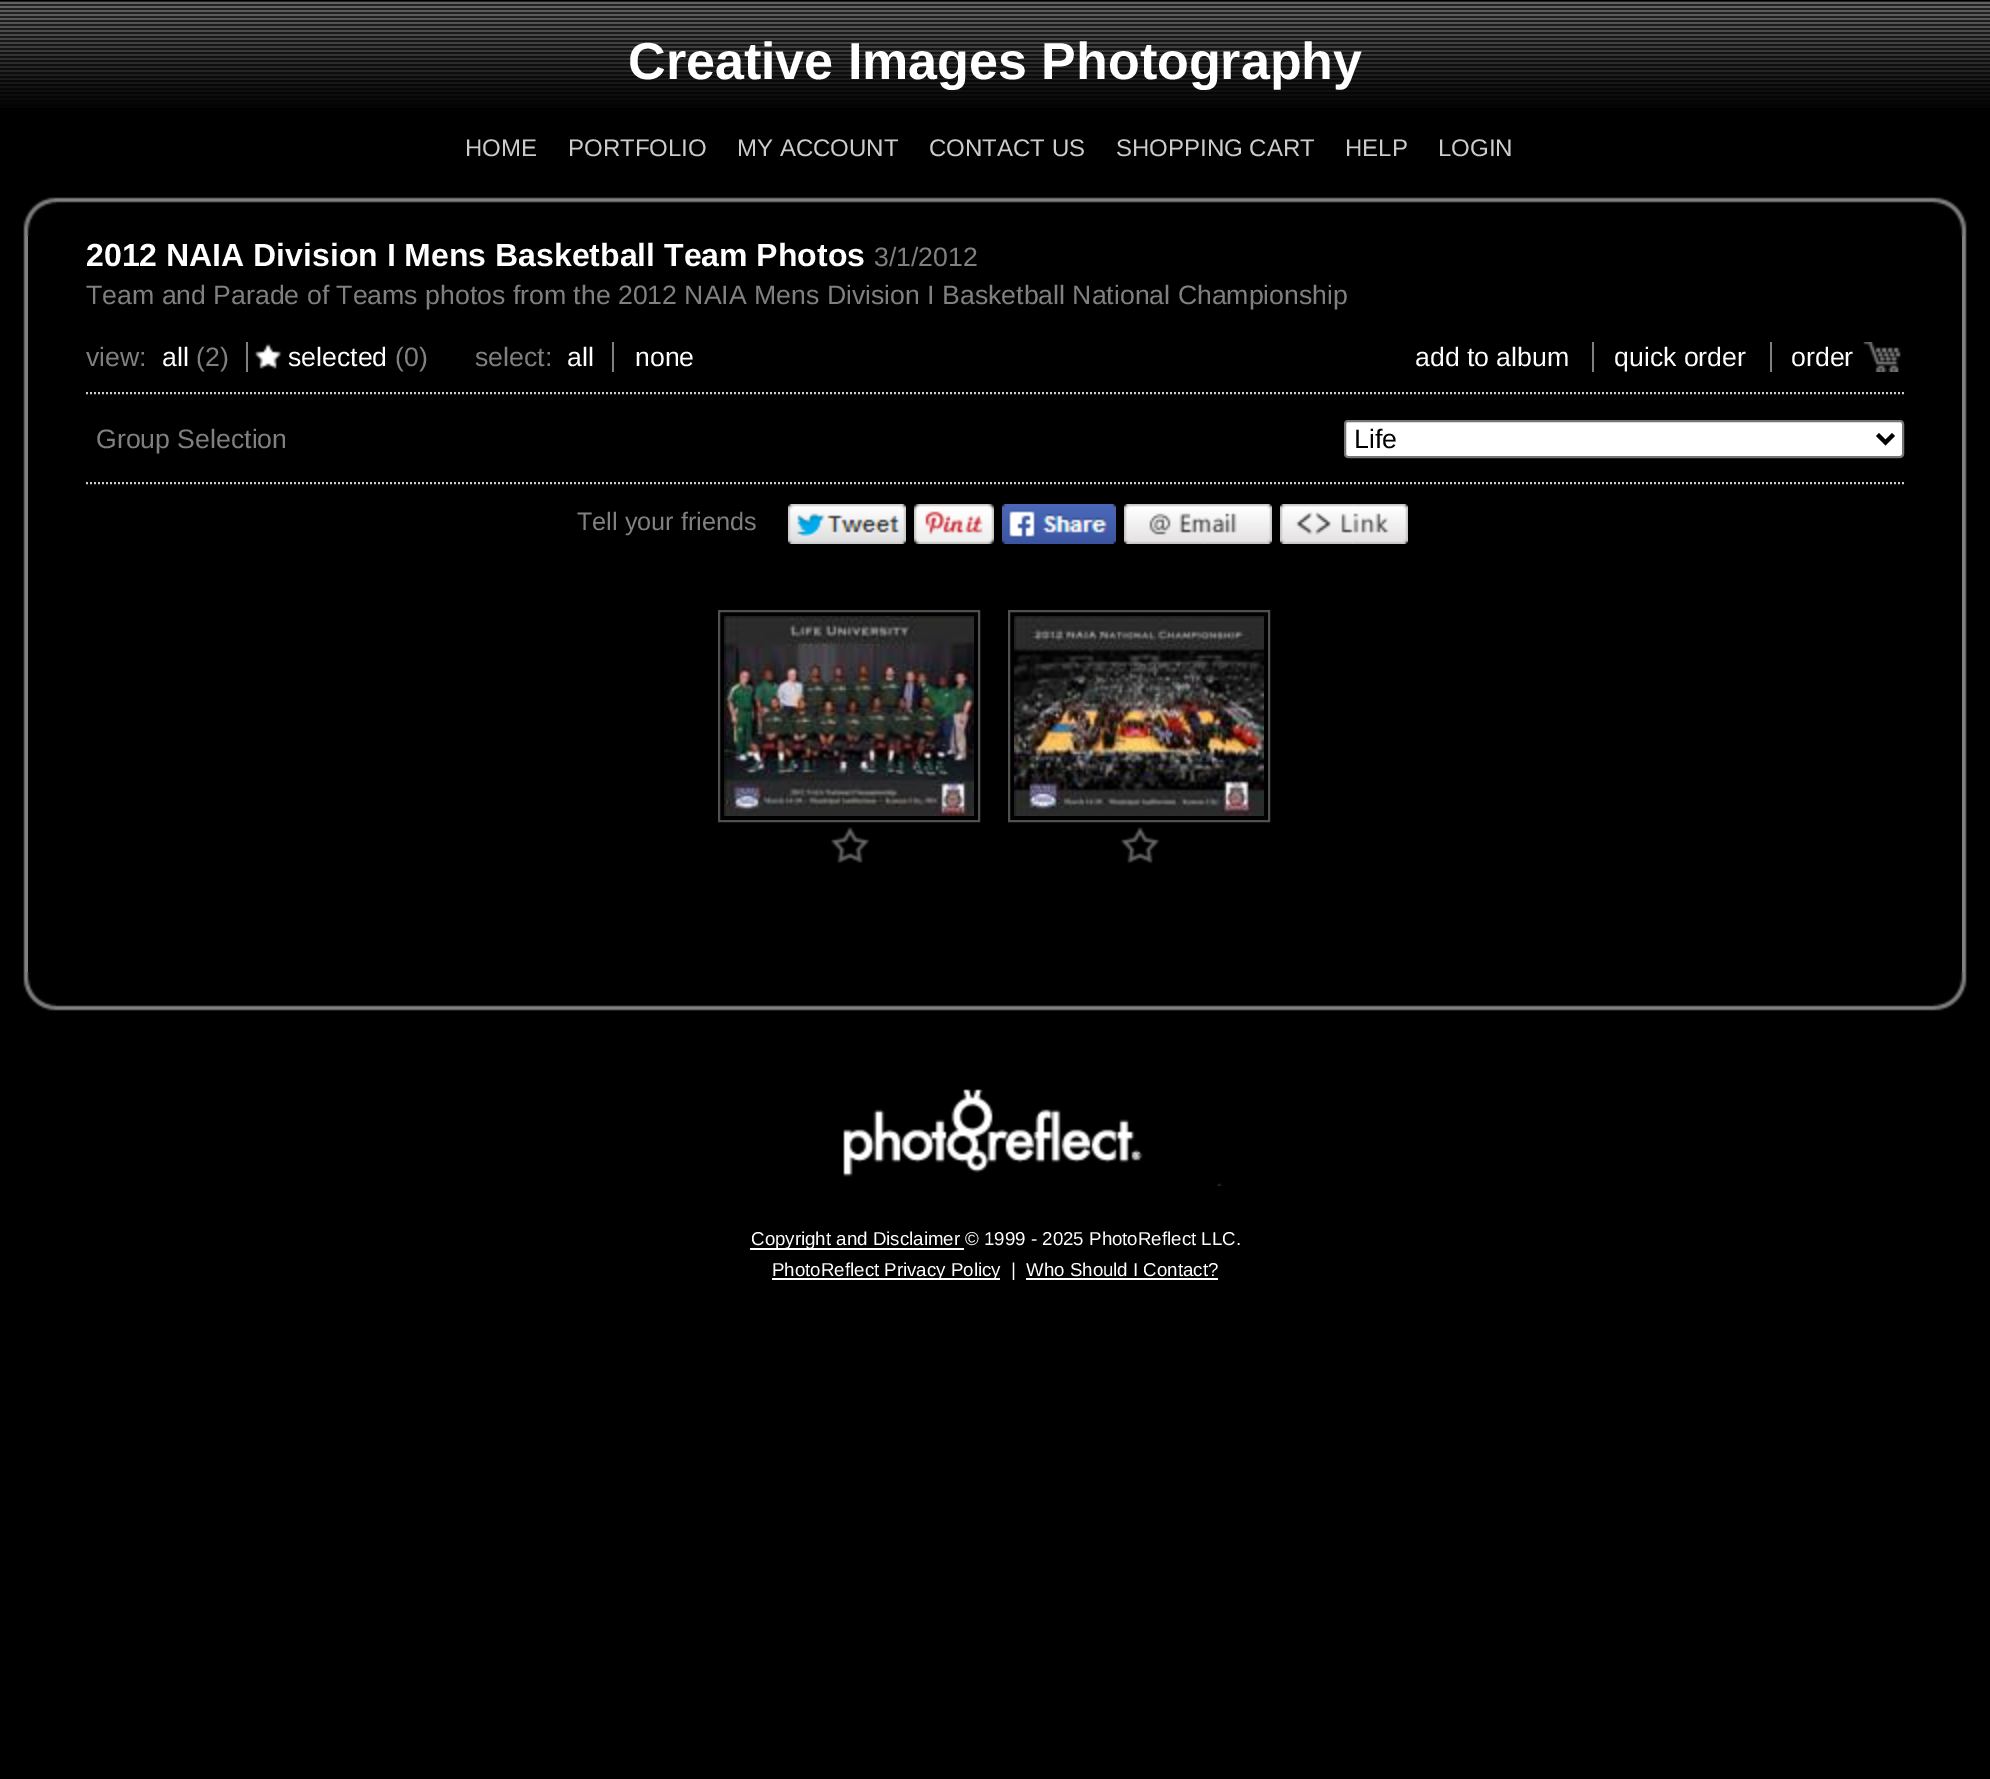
%!PS-Adobe-3.0
%%BoundingBox: 0 0 1990 1779
%%LanguageLevel: 3
%%Pages: 1
%%EndComments
%%BeginProlog
/m { moveto } bind def
/l { lineto } bind def
/f { fill } bind def
/S { stroke } bind def
/q { gsave } bind def
/Q { grestore } bind def
/w { setlinewidth } bind def
/fn { [ exch dup neg 0 0 3 -1 roll 0 0 ] selectfont } def
/tx { moveto show } def
/bx { rectfill } def
/rr { 5 dict begin { /r /h /w /y /x } { exch def } forall
  x r add y moveto x w add y 2 copy h add r arct x w add y h add x 1 index r arct
  x y h add x y r arct x y 2 copy exch w add exch r arct closepath end } def
/im { 5 dict begin { /h /w /y /x /name } { exch def } forall
  gsave x y translate w h scale
  w h 8 [w 0 0 h 0 0] name (r) file false 3 colorimage grestore end } def
%%EndProlog
%%BeginSetup
<< /PageSize [1990 1779] >> setpagedevice
%%EndSetup
%%Page: 1 1
0 1779 translate 1 -1 scale
4 setmiterlimit
0 setgray
0 0 1990 1779 bx
(image0.raw) 0 1 1990 107 im
/LiberationSans-Bold 52 fn
1 setgray
(Creative Images Photography) 628 79 tx
/LiberationSans-Regular 24 fn
0.8 setgray
(HOME) 465 156 tx
(PORTFOLIO) 568 156 tx
(MY ACCOUNT) 737 156 tx
(CONTACT US) 929 156 tx
(SHOPPING CART) 1116 156 tx
(HELP) 1345 156 tx
(LOGIN) 1438 156 tx
(image1.raw) 57 197 905 6 im
(image2.raw) 0 197 57 39 im
(image3.raw) 962 197 32 6 im
(image4.raw) 994 197 34 6 im
(image1.raw) 1028 197 905 6 im
(image5.raw) 1933 197 57 39 im
(image6.raw) 23 236 5 736 im
/LiberationSans-Bold 32 fn
1 setgray
(2012 NAIA Division I Mens Basketball Team Photos) 86 266 tx
/LiberationSans-Regular 26.65 fn
0.502 setgray
(3/1/2012) 874 266 tx
(Team and Parade of Teams photos from the 2012 NAIA Mens Division I Basketball National Championship) 86 304 tx
(view:) 86 366 tx
1 setgray
(all) 162 366 tx
0.502 setgray
(\(2\)) 196 366 tx
(image7.raw) 254 343 28 26 im
1 setgray
(selected) 288 366 tx
0.502 setgray
246 342 2 30 bx
(\(0\)) 395 366 tx
(select:) 475 366 tx
1 setgray
(all) 567 366 tx
(none) 635 366 tx
0.502 setgray
612 342 2 30 bx
1 setgray
(add to album) 1415 366 tx
(quick order) 1614 366 tx
0.502 setgray
1592 342 2 30 bx
1 setgray
(order) 1791 366 tx
0.502 setgray
1770 342 2 30 bx
(image8.raw) 1863 342 38 30 im
0.8 setgray
2 w
[2 2] 0 setdash
86 393 m 1904 393 l S
86 483 m 1904 483 l S
0.502 setgray
(Group Selection) 96 448 tx
1 setgray
1345 421 558 36 3 rr q f Q
0.463 setgray
[] 0 setdash
S
0 setgray
4 w
1877.5 434.5 m 1885.5 442.5 l 1893.5 434.5 l S
(Life) 1354 448 tx
/LiberationSans-Regular 25.25 fn
0.502 setgray
(Tell your friends) 577 530 tx
(image9.raw) 788 504 118 40 im
(image10.raw) 914 504 80 40 im
(image11.raw) 1002 504 114 40 im
(image12.raw) 1124 504 148 40 im
(image13.raw) 1280 504 128 40 im
(image14.raw) 724 616 250 200 im
0.314 setgray
2 w
719 611 260 210 rectstroke
(image15.raw) 830 827 40 37 im
(image16.raw) 1014 616 250 200 im
1009 611 260 210 rectstroke
(image15.raw) 1120 827 40 37 im
(image17.raw) 1962 236 5 736 im
(image1.raw) 57 1005 905 6 im
(image18.raw) 0 972 57 39 im
(image3.raw) 962 1005 32 6 im
(image4.raw) 994 1005 34 6 im
(image1.raw) 1028 1005 905 6 im
(image19.raw) 1933 972 57 39 im
(image20.raw) 843 1089 379 97 im
1 setgray
750 1248 214 2 bx
/LiberationSans-Regular 18.7 fn
(Copyright and Disclaimer © 1999 - 2025 PhotoReflect LLC.) 751 1245 tx
772 1278 228 2 bx
(PhotoReflect Privacy Policy) 772 1276 tx
(|) 1011 1276 tx
(Who Should I Contact?) 1026 1276 tx
1026 1278 192 2 bx
showpage
%%EOF
